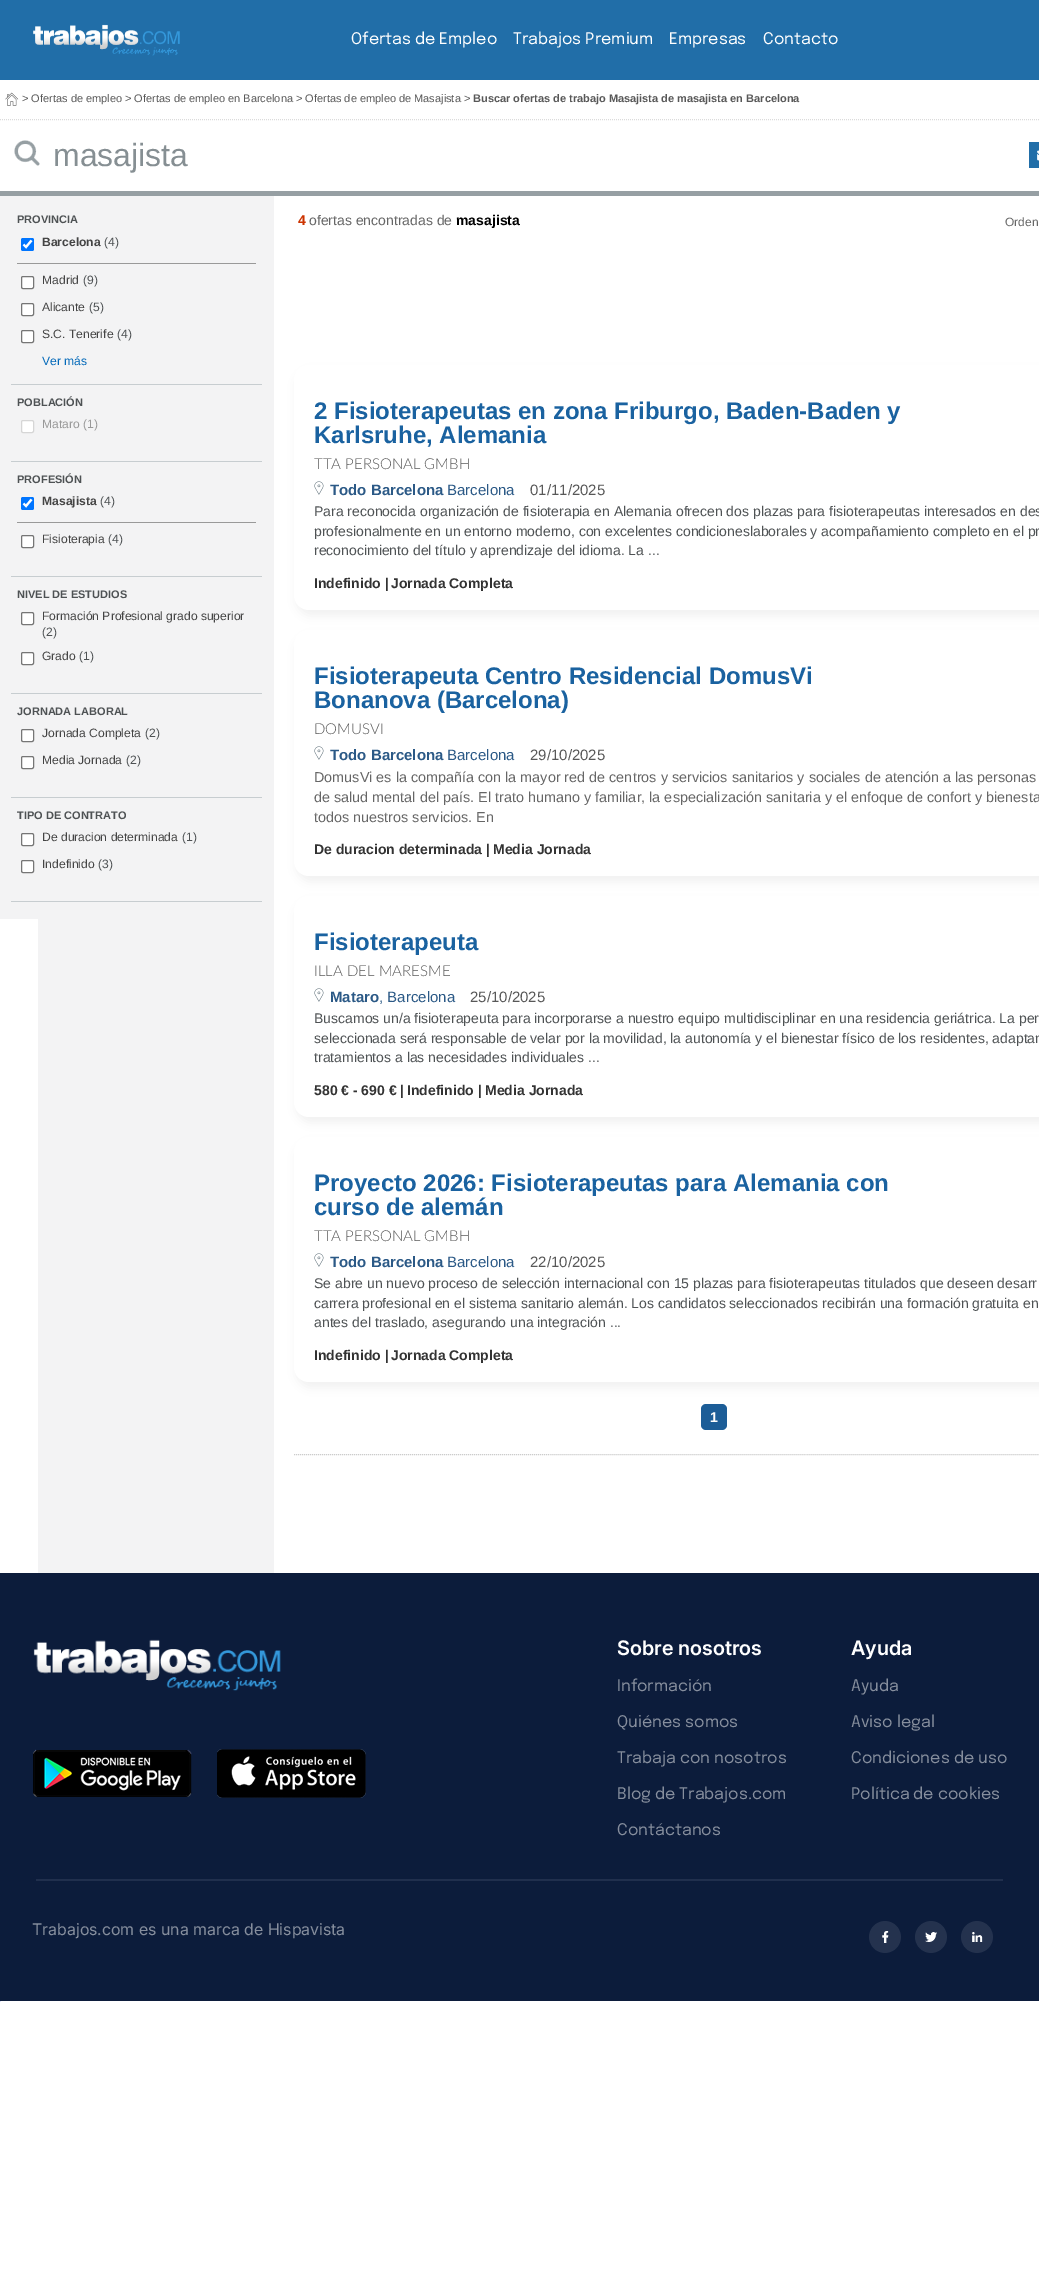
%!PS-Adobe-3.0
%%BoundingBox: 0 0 1039 2294
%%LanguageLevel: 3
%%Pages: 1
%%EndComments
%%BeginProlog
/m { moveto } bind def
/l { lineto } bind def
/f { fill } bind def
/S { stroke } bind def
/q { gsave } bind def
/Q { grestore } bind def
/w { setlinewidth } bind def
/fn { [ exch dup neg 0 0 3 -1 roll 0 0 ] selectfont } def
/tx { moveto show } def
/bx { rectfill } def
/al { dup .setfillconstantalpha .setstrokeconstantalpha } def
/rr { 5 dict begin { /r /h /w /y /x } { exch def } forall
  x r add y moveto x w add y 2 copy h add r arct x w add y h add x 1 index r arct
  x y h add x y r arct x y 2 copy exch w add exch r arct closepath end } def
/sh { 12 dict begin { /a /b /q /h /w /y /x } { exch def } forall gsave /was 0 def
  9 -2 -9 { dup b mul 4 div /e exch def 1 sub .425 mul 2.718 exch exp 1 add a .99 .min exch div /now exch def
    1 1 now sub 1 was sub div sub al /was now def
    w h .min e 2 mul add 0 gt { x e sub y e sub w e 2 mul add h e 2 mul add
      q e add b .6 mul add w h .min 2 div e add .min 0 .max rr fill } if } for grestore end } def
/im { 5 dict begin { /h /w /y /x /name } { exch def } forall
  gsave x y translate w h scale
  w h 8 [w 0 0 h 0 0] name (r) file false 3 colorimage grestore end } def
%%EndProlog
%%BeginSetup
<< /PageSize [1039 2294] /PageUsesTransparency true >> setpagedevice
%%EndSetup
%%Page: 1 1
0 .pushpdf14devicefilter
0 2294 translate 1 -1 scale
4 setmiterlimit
1 setgray
0 0 1039 2294 bx
0.129 0.431 0.659 setrgbcolor
0 0 1039 80 bx
(image0.raw) 33 24 147 32 im
/Epilogue-Regular 16 fn
1 setgray
(Ofertas de Empleo) 351 44 tx
(Trabajos Premium) 513 44 tx
(Empresas) 669 44 tx
(Contacto) 763 44 tx
0.859 setgray
[1 1] 0 setdash
0 119.5 m 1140 119.5 l S
(image1.raw) 5 92 14 14 im
/LiberationSans-Regular 11 fn
0.345 setgray
(> Ofertas de empleo > Ofertas de empleo en Barcelona > Ofertas de empleo de Masajista >) 22 102 tx
/LiberationSans-Bold 11 fn
(Buscar ofertas de trabajo Masajista de masajista en Barcelona) 473 102 tx
0.588 0.624 0.639 setrgbcolor
0 191 1039 5 bx
(image2.raw) 14 140 26 26 im
/LiberationSans-Regular 32 fn
0.525 0.561 0.576 setrgbcolor
(masajista) 53 166 tx
0.129 0.431 0.659 setrgbcolor
1029 142 10 26 bx
(image3.raw) 1037 150 2 11 im
0.953 0.953 0.957 setrgbcolor
0 196 274 723 bx
0.78 0.804 0.816 setrgbcolor
11 384 251 1 bx
/LiberationSans-Bold 11 fn
0.306 0.322 0.329 setrgbcolor
(PROVINCIA) 17 223 tx
0.6 setgray
17 263 239 1 bx
0 0.459 1 setrgbcolor
21 238 13 13 2 rr f
1 setgray
2.1 w
[] 0 setdash
23.5 244.5 m 26 247 l 31.5 240.5 l S
/LiberationSans-Bold 12.1 fn
0.267 setgray
(Barcelona) 42 246 tx
/LiberationSans-Regular 12.1 fn
0.306 0.322 0.329 setrgbcolor
(\(4\)) 104 246 tx
1 setgray
21.5 276.5 12 12 1.5 rr q f Q
0.463 setgray
1 w
S
0.267 setgray
(Madrid) 42 284 tx
0.306 0.322 0.329 setrgbcolor
(\(9\)) 83 284 tx
1 setgray
21.5 303.5 12 12 1.5 rr q f Q
0.463 setgray
S
0.267 setgray
(Alicante) 42 311 tx
0.306 0.322 0.329 setrgbcolor
(\(5\)) 89 311 tx
1 setgray
21.5 330.5 12 12 1.5 rr q f Q
0.463 setgray
S
0.267 setgray
(S.C. Tenerife) 42 338 tx
0.306 0.322 0.329 setrgbcolor
(\(4\)) 117 338 tx
0.012 0.412 0.725 setrgbcolor
(Ver más) 42 365 tx
0.78 0.804 0.816 setrgbcolor
11 461 251 1 bx
/LiberationSans-Bold 11 fn
0.306 0.322 0.329 setrgbcolor
(POBLACIÓN) 17 406 tx
1 setgray
21.5 420.5 12 12 1.5 rr q f Q
0.839 setgray
S
/LiberationSans-Regular 12.1 fn
0.6 setgray
(Mataro \(1\)) 42 428 tx
0.78 0.804 0.816 setrgbcolor
11 576 251 1 bx
/LiberationSans-Bold 11 fn
0.306 0.322 0.329 setrgbcolor
(PROFESIÓN) 17 483 tx
0.6 setgray
17 522 239 1 bx
0 0.459 1 setrgbcolor
21 497 13 13 2 rr f
1 setgray
2.1 w
23.5 503.5 m 26 506 l 31.5 499.5 l S
/LiberationSans-Bold 12.1 fn
0.267 setgray
(Masajista) 42 505 tx
/LiberationSans-Regular 12.1 fn
0.306 0.322 0.329 setrgbcolor
(\(4\)) 100 505 tx
1 setgray
21.5 535.5 12 12 1.5 rr q f Q
0.463 setgray
1 w
S
0.267 setgray
(Fisioterapia) 42 543 tx
0.306 0.322 0.329 setrgbcolor
(\(4\)) 108 543 tx
0.78 0.804 0.816 setrgbcolor
11 693 251 1 bx
/LiberationSans-Bold 11 fn
0.306 0.322 0.329 setrgbcolor
(NIVEL DE ESTUDIOS) 17 598 tx
1 setgray
21.5 612.5 12 12 1.5 rr q f Q
0.463 setgray
S
/LiberationSans-Regular 12.1 fn
0.267 setgray
(Formación Profesional grado superior) 42 620 tx
0.306 0.322 0.329 setrgbcolor
(\(2\)) 42 636 tx
1 setgray
21.5 652.5 12 12 1.5 rr q f Q
0.463 setgray
S
0.267 setgray
(Grado) 42 660 tx
0.306 0.322 0.329 setrgbcolor
(\(1\)) 79 660 tx
0.78 0.804 0.816 setrgbcolor
11 797 251 1 bx
/LiberationSans-Bold 11 fn
0.306 0.322 0.329 setrgbcolor
(JORNADA LABORAL) 17 715 tx
1 setgray
21.5 729.5 12 12 1.5 rr q f Q
0.463 setgray
S
/LiberationSans-Regular 12.1 fn
0.267 setgray
(Jornada Completa) 42 737 tx
0.306 0.322 0.329 setrgbcolor
(\(2\)) 145 737 tx
1 setgray
21.5 756.5 12 12 1.5 rr q f Q
0.463 setgray
S
0.267 setgray
(Media Jornada) 42 764 tx
0.306 0.322 0.329 setrgbcolor
(\(2\)) 126 764 tx
0.78 0.804 0.816 setrgbcolor
11 901 251 1 bx
/LiberationSans-Bold 11 fn
0.306 0.322 0.329 setrgbcolor
(TIPO DE CONTRATO) 17 819 tx
1 setgray
21.5 833.5 12 12 1.5 rr q f Q
0.463 setgray
S
/LiberationSans-Regular 12.1 fn
0.267 setgray
(De duracion determinada) 42 841 tx
0.306 0.322 0.329 setrgbcolor
(\(1\)) 182 841 tx
1 setgray
21.5 860.5 12 12 1.5 rr q f Q
0.463 setgray
S
0.267 setgray
(Indefinido) 42 868 tx
0.306 0.322 0.329 setrgbcolor
(\(3\)) 98 868 tx
/LiberationSans-Bold 14 fn
0.8 0.2 0 setrgbcolor
(4) 298 225 tx
/LiberationSans-Regular 14 fn
0.4 setgray
(ofertas encontradas de) 309 225 tx
/LiberationSans-Bold 14 fn
0 setgray
(masajista) 456 225 tx
/LiberationSans-Regular 12 fn
0.4 setgray
(Orden) 1005 226 tx
0.953 0.953 0.957 setrgbcolor
38 919 236 654 bx
0 setgray
296 371 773 245 15 5 0.05 sh
1 setgray
294 365 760 245 15 rr f
/LiberationSans-Bold 24 fn
0.102 0.384 0.627 setrgbcolor
(2 Fisioterapeutas en zona Friburgo, Baden-Baden y) 314 419 tx
(Karlsruhe, Alemania) 314 443 tx
/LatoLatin-Light 15 fn
0.345 setgray
(TTA PERSONAL GMBH) 314 469 tx
(image4.raw) 314 481 10 14 im
/LiberationSans-Bold 15 fn
0.169 0.349 0.525 setrgbcolor
(Todo Barcelona) 330 495 tx
/LiberationSans-Regular 15 fn
(Barcelona) 447 495 tx
0.345 setgray
(01/11/2025) 530 495 tx
/LiberationSans-Regular 14 fn
0.306 0.322 0.329 setrgbcolor
(Para reconocida organización de fisioterapia en Alemania ofrecen dos plazas para fisioterapeutas interesados en des) 314 516 tx
(profesionalmente en un entorno moderno, con excelentes condicioneslaborales y acompañamiento completo en el pr) 314 536 tx
(reconocimiento del título y aprendizaje del idioma. La ...) 314 555 tx
/LiberationSans-Bold 14 fn
0.2 setgray
(Indefinido |) 314 588 tx
(Jornada Completa) 391 588 tx
0 setgray
296 636 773 246 15 5 0.05 sh
1 setgray
294 630 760 246 15 rr f
/LiberationSans-Bold 24 fn
0.102 0.384 0.627 setrgbcolor
(Fisioterapeuta Centro Residencial DomusVi) 314 684 tx
(Bonanova \(Barcelona\)) 314 708 tx
/LatoLatin-Light 15 fn
0.345 setgray
(DOMUSVI) 314 734 tx
(image4.raw) 314 746 10 14 im
/LiberationSans-Bold 15 fn
0.169 0.349 0.525 setrgbcolor
(Todo Barcelona) 330 760 tx
/LiberationSans-Regular 15 fn
(Barcelona) 447 760 tx
0.345 setgray
(29/10/2025) 530 760 tx
/LiberationSans-Regular 14.4 fn
0.4 setgray
(DomusVi es la compañía con la mayor red de centros y servicios sanitarios y sociales de atención a las personas) 314 782 tx
(de salud mental del país. El trato humano y familiar, la especialización sanitaria y el enfoque de confort y bienesta) 314 802 tx
(todos nuestros servicios. En) 314 822 tx
/LiberationSans-Bold 14 fn
0.2 setgray
(De duracion determinada |) 314 854 tx
(Media Jornada) 493 854 tx
0 setgray
296 902 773 221 15 5 0.05 sh
1 setgray
294 896 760 221 15 rr f
/LiberationSans-Bold 24 fn
0.102 0.384 0.627 setrgbcolor
(Fisioterapeuta) 314 950 tx
/LatoLatin-Light 15 fn
0.345 setgray
(ILLA DEL MARESME) 314 976 tx
(image4.raw) 314 988 10 14 im
/LiberationSans-Bold 15 fn
0.169 0.349 0.525 setrgbcolor
(Mataro) 330 1002 tx
/LiberationSans-Regular 15 fn
(, Barcelona) 379 1002 tx
0.345 setgray
(25/10/2025) 470 1002 tx
/LiberationSans-Regular 14 fn
0.306 0.322 0.329 setrgbcolor
(Buscamos un/a fisioterapeuta para incorporarse a nuestro equipo multidisciplinar en una residencia geriátrica. La per) 314 1023 tx
(seleccionada será responsable de velar por la movilidad, la autonomía y el bienestar físico de los residentes, adaptan) 314 1043 tx
(tratamientos a las necesidades individuales ...) 314 1062 tx
/LiberationSans-Bold 14 fn
0.2 setgray
(580 € - 690 € |) 314 1095 tx
(Indefinido |) 407 1095 tx
(Media Jornada) 485 1095 tx
0 setgray
296 1143 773 245 15 5 0.05 sh
1 setgray
294 1137 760 245 15 rr f
/LiberationSans-Bold 24 fn
0.102 0.384 0.627 setrgbcolor
(Proyecto 2026: Fisioterapeutas para Alemania con) 314 1191 tx
(curso de alemán) 314 1215 tx
/LatoLatin-Light 15 fn
0.345 setgray
(TTA PERSONAL GMBH) 314 1241 tx
(image4.raw) 314 1253 10 14 im
/LiberationSans-Bold 15 fn
0.169 0.349 0.525 setrgbcolor
(Todo Barcelona) 330 1267 tx
/LiberationSans-Regular 15 fn
(Barcelona) 447 1267 tx
0.345 setgray
(22/10/2025) 530 1267 tx
/LiberationSans-Regular 14 fn
0.306 0.322 0.329 setrgbcolor
(Se abre un nuevo proceso de selección internacional con 15 plazas para fisioterapeutas titulados que deseen desarr) 314 1288 tx
(carrera profesional en el sistema sanitario alemán. Los candidatos seleccionados recibirán una formación gratuita en) 314 1308 tx
(antes del traslado, asegurando una integración ...) 314 1327 tx
/LiberationSans-Bold 14 fn
0.2 setgray
(Indefinido |) 314 1360 tx
(Jornada Completa) 391 1360 tx
0.8 setgray
[1 1] 0 setdash
294 1454.5 m 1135 1454.5 l S
0.11 0.365 0.592 setrgbcolor
701 1404 26 26 5 rr f
1 setgray
(1) 710 1422 tx
0.047 0.11 0.231 setrgbcolor
0 1573 1039 428 bx
(image5.raw) 33 1639 248 52 im
(image6.raw) 33 1749 159 48 im
(image7.raw) 217 1749 149 49 im
/Inter-SemiBold 20 fn
1 setgray
(Sobre nosotros) 617 1655 tx
/Epilogue-Regular 16 fn
0.525 0.557 0.616 setrgbcolor
(Información) 617 1691 tx
(Quiénes somos) 617 1727 tx
(Trabaja con nosotros) 617 1763 tx
(Blog de Trabajos.com) 617 1799 tx
(Contáctanos) 617 1835 tx
/Inter-SemiBold 20 fn
1 setgray
(Ayuda) 851 1655 tx
/Epilogue-Regular 16 fn
0.525 0.557 0.616 setrgbcolor
(Ayuda) 851 1691 tx
(Aviso legal) 851 1727 tx
(Condiciones de uso) 851 1763 tx
(Política de cookies) 851 1799 tx
0.125 0.184 0.302 setrgbcolor
36 1879 967 2 bx
/Inter-Regular 16 fn
0.525 0.557 0.616 setrgbcolor
(Trabajos.com es una marca de Hispavista) 32 1935 tx
(image8.raw) 869 1921 32 32 im
(image9.raw) 915 1921 32 32 im
(image10.raw) 961 1921 32 32 im
0.871 0.878 0.98 setrgbcolor
0 2001 1 1 bx
.poppdf14devicefilter showpage
%%EOF
